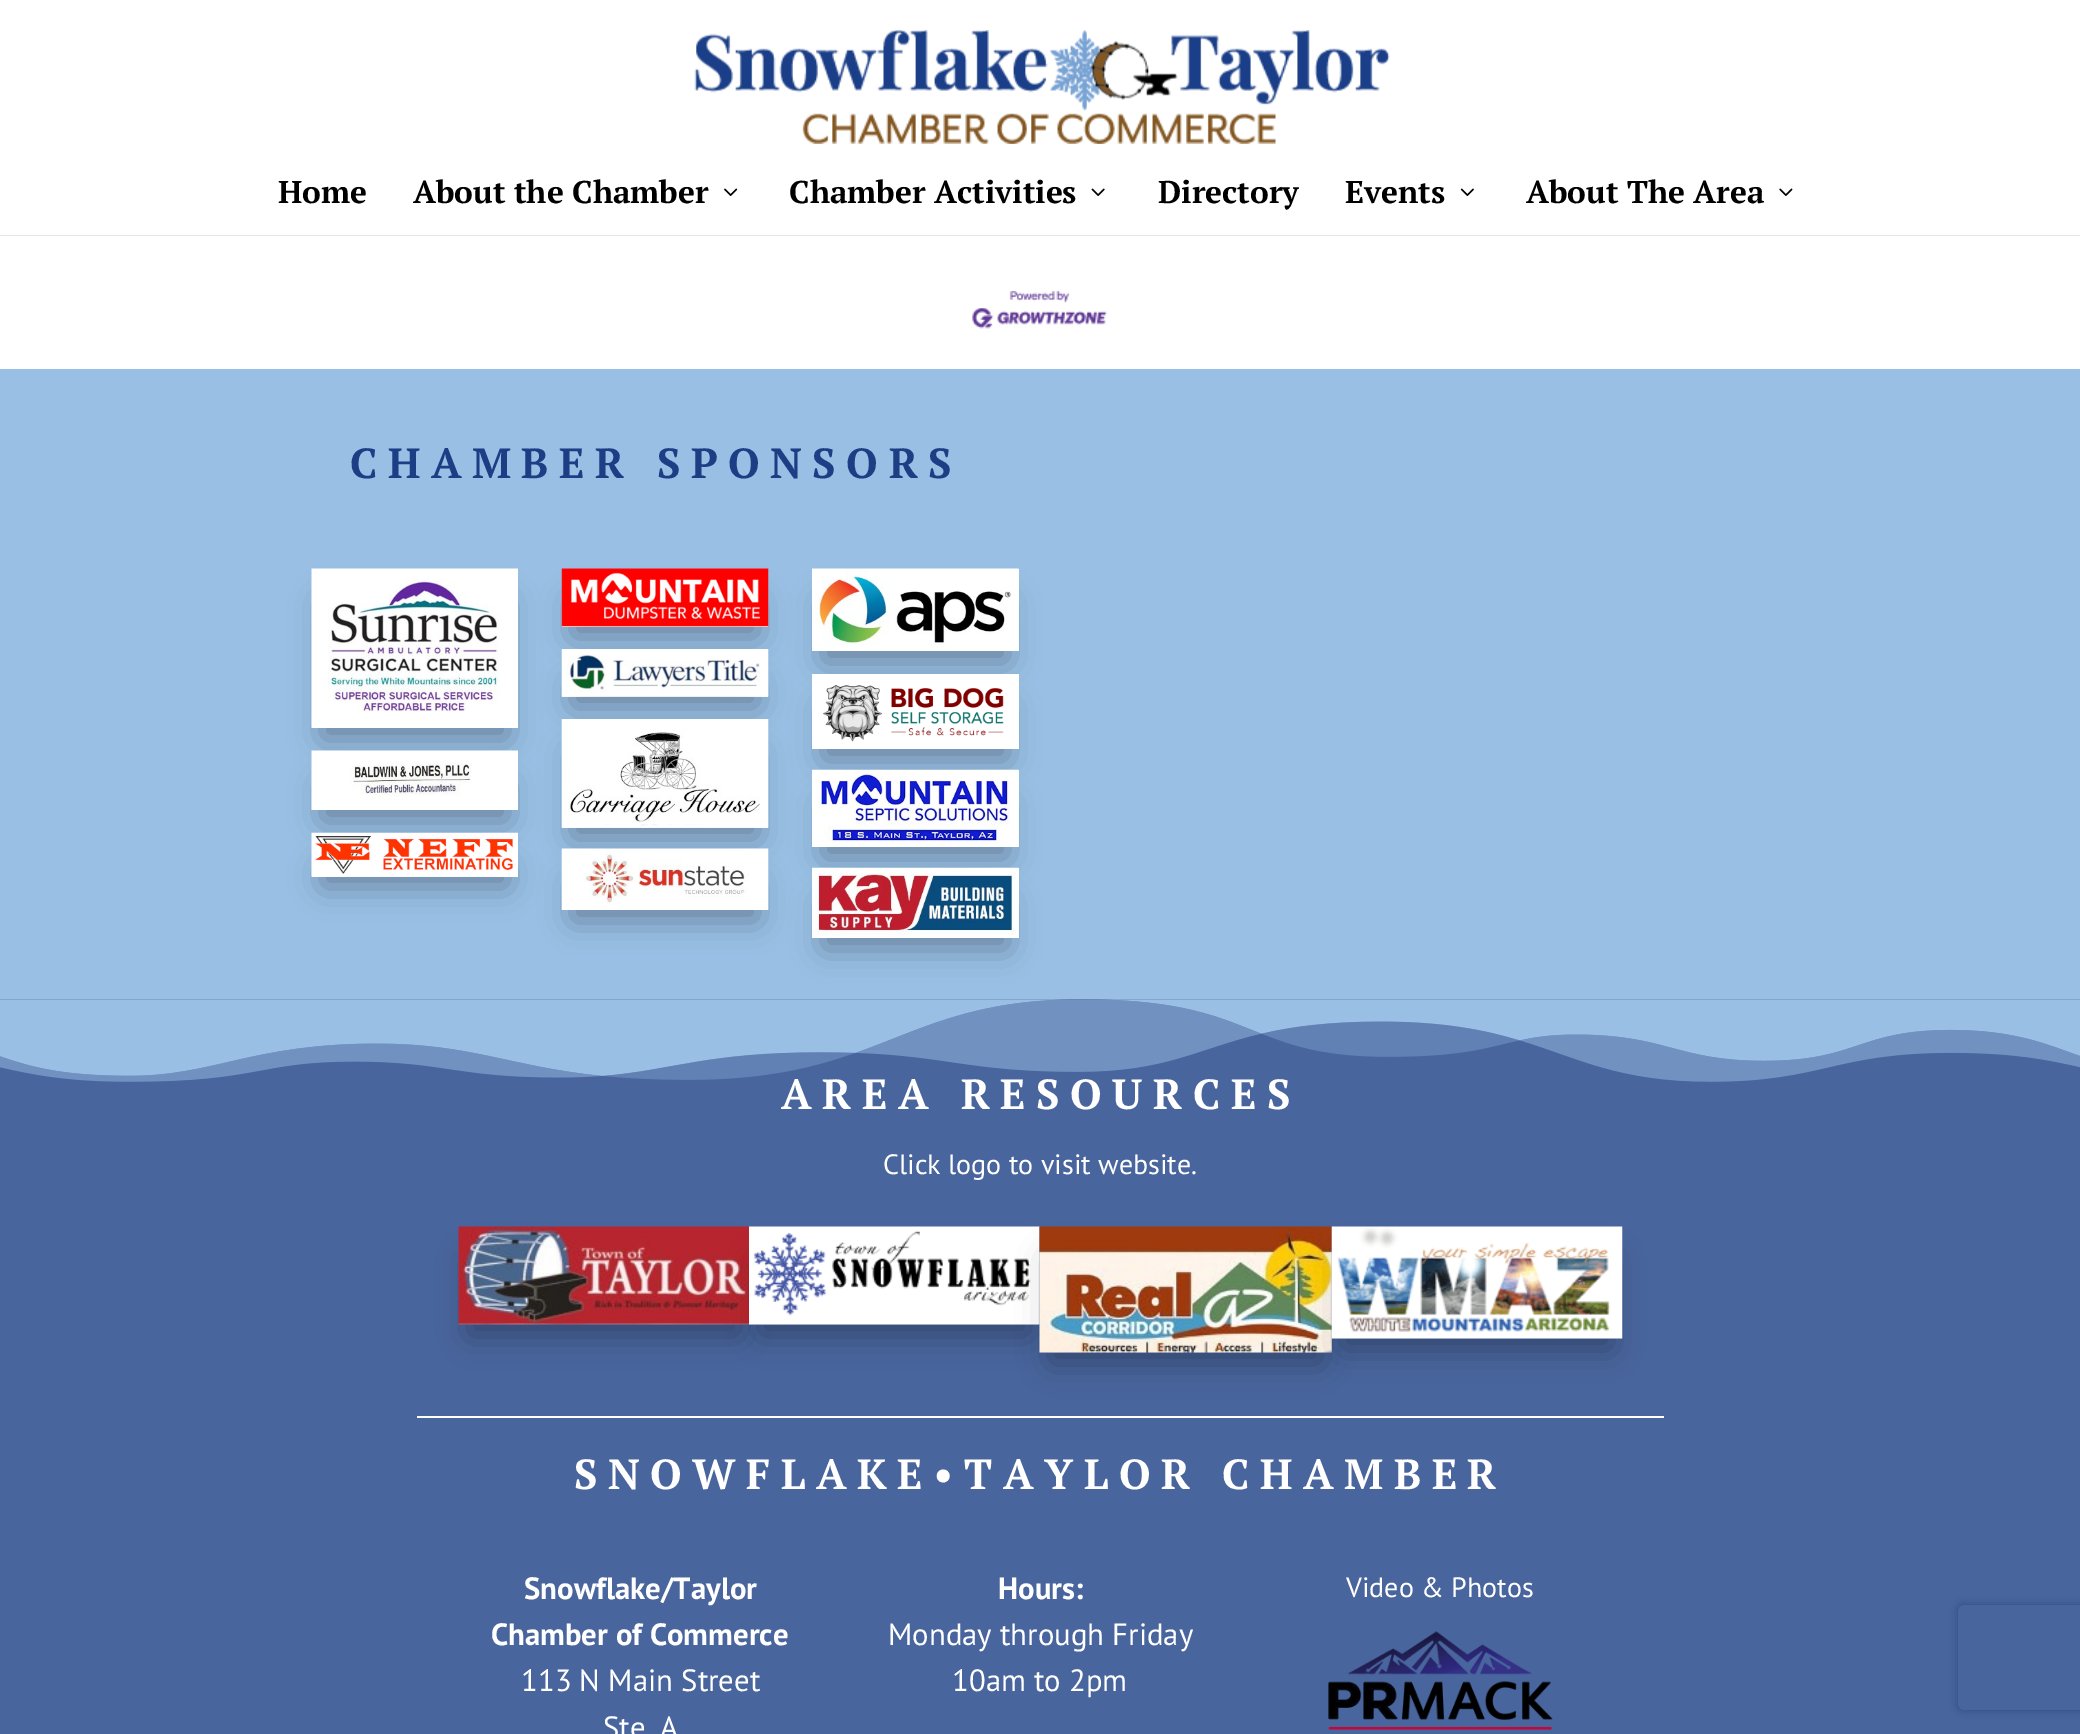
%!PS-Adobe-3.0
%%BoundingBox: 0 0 2080 1734
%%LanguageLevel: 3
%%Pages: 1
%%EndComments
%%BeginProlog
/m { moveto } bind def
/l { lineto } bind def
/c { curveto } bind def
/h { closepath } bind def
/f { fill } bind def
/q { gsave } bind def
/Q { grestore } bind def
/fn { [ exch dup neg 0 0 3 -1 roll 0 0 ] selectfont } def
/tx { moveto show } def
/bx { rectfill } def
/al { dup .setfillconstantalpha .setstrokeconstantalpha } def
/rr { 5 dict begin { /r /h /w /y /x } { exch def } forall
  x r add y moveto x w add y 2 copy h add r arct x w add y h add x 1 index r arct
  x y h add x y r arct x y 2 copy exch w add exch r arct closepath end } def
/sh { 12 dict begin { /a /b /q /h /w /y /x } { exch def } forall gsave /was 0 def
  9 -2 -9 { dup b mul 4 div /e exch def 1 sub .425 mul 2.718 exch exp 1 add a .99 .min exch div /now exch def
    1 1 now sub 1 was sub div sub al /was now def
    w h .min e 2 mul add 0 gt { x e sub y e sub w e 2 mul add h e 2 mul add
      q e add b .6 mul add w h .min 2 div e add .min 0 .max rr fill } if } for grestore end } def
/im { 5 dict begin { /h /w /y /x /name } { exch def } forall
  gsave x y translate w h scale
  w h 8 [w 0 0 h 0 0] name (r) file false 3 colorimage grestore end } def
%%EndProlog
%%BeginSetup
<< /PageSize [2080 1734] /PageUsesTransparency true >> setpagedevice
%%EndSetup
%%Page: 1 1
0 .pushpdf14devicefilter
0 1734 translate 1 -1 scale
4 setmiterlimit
1 setgray
0 0 2080 1734 bx
0.286 0.396 0.616 setrgbcolor
0 999 2080 735 bx
0.902 setgray
0 234 m 0 236 l 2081 236 l 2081 2 l 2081 234 l h f
1 setgray
0 234 2080 1 bx
(image0.raw) 694 30 696 114 im
/PTSerif-Bold 31.5 fn
0 setgray
(Home) 278 203 tx
(About the Chamber) 413 203 tx
(image1.raw) 724 188 14 8 im
(Chamber Activities) 789 203 tx
(image2.raw) 1091 188 14 8 im
(Directory) 1158 203 tx
(Events) 1345 203 tx
(image3.raw) 1460 188 14 8 im
(About The Area) 1526 203 tx
(image4.raw) 1779 188 14 8 im
(image5.raw) 972 290 135 39 im
0.6 0.749 0.898 setrgbcolor
0 369 2080 630 bx
/PTSerif-Bold 42 fn
0.106 0.243 0.522 setrgbcolor
350 478 m 10.5 0 (CHAMBER SPONSORS) ashow
0 setgray
322 600 186 139 0 16 0.3 sh
(image6.raw) 311 568 207 160 im
322 782 186 39 0 16 0.3 sh
(image7.raw) 311 750 207 60 im
1 setgray
312 876 206 1 bx
0 setgray
322 865 186 22 0 16 0.3 sh
(image8.raw) 311 832 207 45 im
1 setgray
562 569 206 58 bx
0 setgray
572 600 186 37 0 16 0.3 sh
(image9.raw) 561 568 208 59 im
1 setgray
562 696 206 1 bx
0 setgray
572 681 186 26 0 16 0.3 sh
(image10.raw) 561 649 208 48 im
1 setgray
562 827 206 1 bx
0 setgray
572 751 186 87 0 16 0.3 sh
(image11.raw) 561 719 208 109 im
572 880 186 41 0 16 0.3 sh
(image12.raw) 561 848 208 62 im
1 setgray
812 569 207 82 bx
q
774 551 m 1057 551 l 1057 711 l 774 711 l h 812 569 m 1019 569 l 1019 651 l 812 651 l h eoclip newpath
0 setgray
823 600 185 62 0 16 0.3 sh
Q
(image13.raw) 812 568 207 80 im
812 674 207 75 bx
q
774 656 m 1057 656 l 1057 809 l 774 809 l h 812 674 m 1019 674 l 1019 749 l 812 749 l h eoclip newpath
0 setgray
823 705 185 55 0 16 0.3 sh
Q
(image14.raw) 823 685 181 57 im
812 770 207 77 bx
0 setgray
823 802 185 56 0 16 0.3 sh
(image15.raw) 812 769 207 78 im
1 setgray
812 868 207 70 bx
q
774 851 m 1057 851 l 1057 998 l 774 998 l h 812 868 m 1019 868 l 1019 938 l 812 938 l h eoclip newpath
0 setgray
823 900 185 49 0 16 0.3 sh
Q
(image16.raw) 812 867 207 68 im
(image17.raw) 0 999 2080 83 im
781 1109 m 10.5 0 (AREA RESOURCES) ashow
/PTSans-Regular 28 fn
(Click logo to visit website.) 883 1174 tx
0 setgray
469 1258 270 77 0 16 0.3 sh
(image18.raw) 458 1226 291 99 im
760 1258 269 77 0 16 0.3 sh
(image19.raw) 749 1226 291 99 im
1050 1258 271 105 0 16 0.3 sh
(image20.raw) 1039 1226 293 127 im
1342 1258 270 91 0 16 0.3 sh
(image21.raw) 1331 1226 292 113 im
1 setgray
417 1416 1247 2 bx
/PTSerif-Bold 42 fn
574 1489 m 10.5 0 (SNOWFLAKE•TAYLOR CHAMBER) ashow
/PTSans-Bold 30.75 fn
(Snowflake/Taylor) 524 1599 tx
(Chamber of Commerce) 491 1645 tx
/PTSans-Regular 30.75 fn
(113 N Main Street) 521 1691 tx
(Ste. A) 603 1738 tx
/PTSans-Bold 30.75 fn
(Hours:) 998 1599 tx
/PTSans-Regular 30.75 fn
(Monday through Friday) 888 1645 tx
(10am to 2pm) 952 1691 tx
/PTSans-Regular 28 fn
(Video & Photos) 1346 1597 tx
(image22.raw) 1328 1631 225 99 im
q
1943 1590 m 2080 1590 l 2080 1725 l 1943 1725 l h 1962 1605 m 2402 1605 l 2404 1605 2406 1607 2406 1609 c 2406 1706 l 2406 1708 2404 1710 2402 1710 c 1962 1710 l 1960 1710 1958 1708 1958 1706 c 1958 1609 l 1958 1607 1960 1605 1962 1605 c h eoclip newpath
0.184 0.294 0.518 setrgbcolor
1958 1605 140 105 4 4.5 1 sh
Q
.poppdf14devicefilter showpage
%%EOF
